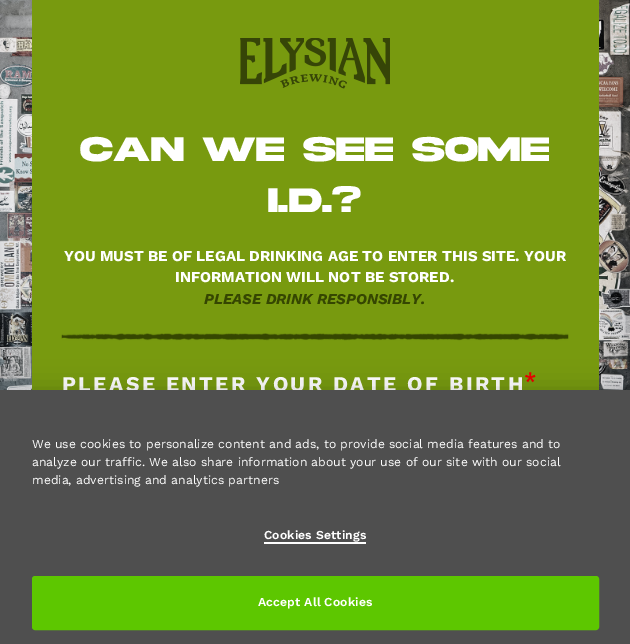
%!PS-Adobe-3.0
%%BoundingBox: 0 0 630 644
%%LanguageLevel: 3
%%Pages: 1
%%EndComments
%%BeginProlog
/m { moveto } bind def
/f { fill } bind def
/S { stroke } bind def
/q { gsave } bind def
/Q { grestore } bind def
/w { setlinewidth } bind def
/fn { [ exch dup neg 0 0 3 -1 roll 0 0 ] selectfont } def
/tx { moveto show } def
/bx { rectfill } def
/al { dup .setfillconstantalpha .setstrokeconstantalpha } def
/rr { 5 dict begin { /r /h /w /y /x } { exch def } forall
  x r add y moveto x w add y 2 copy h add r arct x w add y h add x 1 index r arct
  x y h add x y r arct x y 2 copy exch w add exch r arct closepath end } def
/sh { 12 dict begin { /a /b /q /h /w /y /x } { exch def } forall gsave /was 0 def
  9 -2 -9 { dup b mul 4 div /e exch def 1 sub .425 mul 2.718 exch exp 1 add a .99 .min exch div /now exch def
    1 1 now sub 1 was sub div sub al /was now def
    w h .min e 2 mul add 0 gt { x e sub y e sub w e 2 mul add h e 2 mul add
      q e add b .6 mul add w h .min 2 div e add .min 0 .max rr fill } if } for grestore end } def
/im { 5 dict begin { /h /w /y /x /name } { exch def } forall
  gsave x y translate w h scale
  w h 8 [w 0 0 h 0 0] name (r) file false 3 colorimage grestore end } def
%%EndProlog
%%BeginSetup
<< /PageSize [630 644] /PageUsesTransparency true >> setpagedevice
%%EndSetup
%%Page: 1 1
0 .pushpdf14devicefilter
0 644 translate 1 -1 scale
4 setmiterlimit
1 setgray
0 0 630 644 bx
(image0.raw) 0 0 32 390 im
0.471 0.604 0.059 setrgbcolor
32 0 567 390 bx
(image1.raw) 240 38 150 51 im
/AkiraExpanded-Bold 36 fn
1 setgray
80 161 m 0.4 0 (CAN WE SEE SOME) ashow
268 212 m 0.4 0 (I.D.?) ashow
(image2.raw) 61 333 508 8 im
/WorkSans-Bold 15 fn
(YOU MUST BE OF LEGAL DRINKING AGE TO ENTER THIS SITE. YOUR) 64 261 tx
(INFORMATION WILL NOT BE STORED.) 175 282 tx
/WorkSans-BoldItalic 15 fn
0.208 0.275 0.004 setrgbcolor
(PLEASE DRINK RESPONSIBLY.) 204 304 tx
/WorkSans-Bold 21 fn
1 setgray
62 391 m 2.4 0 (PLEASE ENTER YOUR DATE OF BIRTH) ashow
(image3.raw) 525 372 11 11 im
(image4.raw) 599 0 31 390 im
0 setgray
0 390 630 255 0 13.5 0.2 sh
0.31 setgray
0 390 630 254 bx
/WorkSans-Regular 12.2 fn
1 setgray
(We use cookies to personalize content and ads, to provide social media features and to) 32 448 tx
(analyze our traffic. We also share information about your use of our site with our social) 32 466 tx
(media, advertising and analytics partners) 32 484 tx
/WorkSans-SemiBold 12.2 fn
264 539 m 0.1 0 (Cookies Settings) ashow
264 542 102 2 bx
0.365 0.78 0 setrgbcolor
33 577 565 52 2 rr q f Q
2 w
S
1 setgray
258 606 m 0.1 0 (Accept All Cookies) ashow
.poppdf14devicefilter showpage
%%EOF
